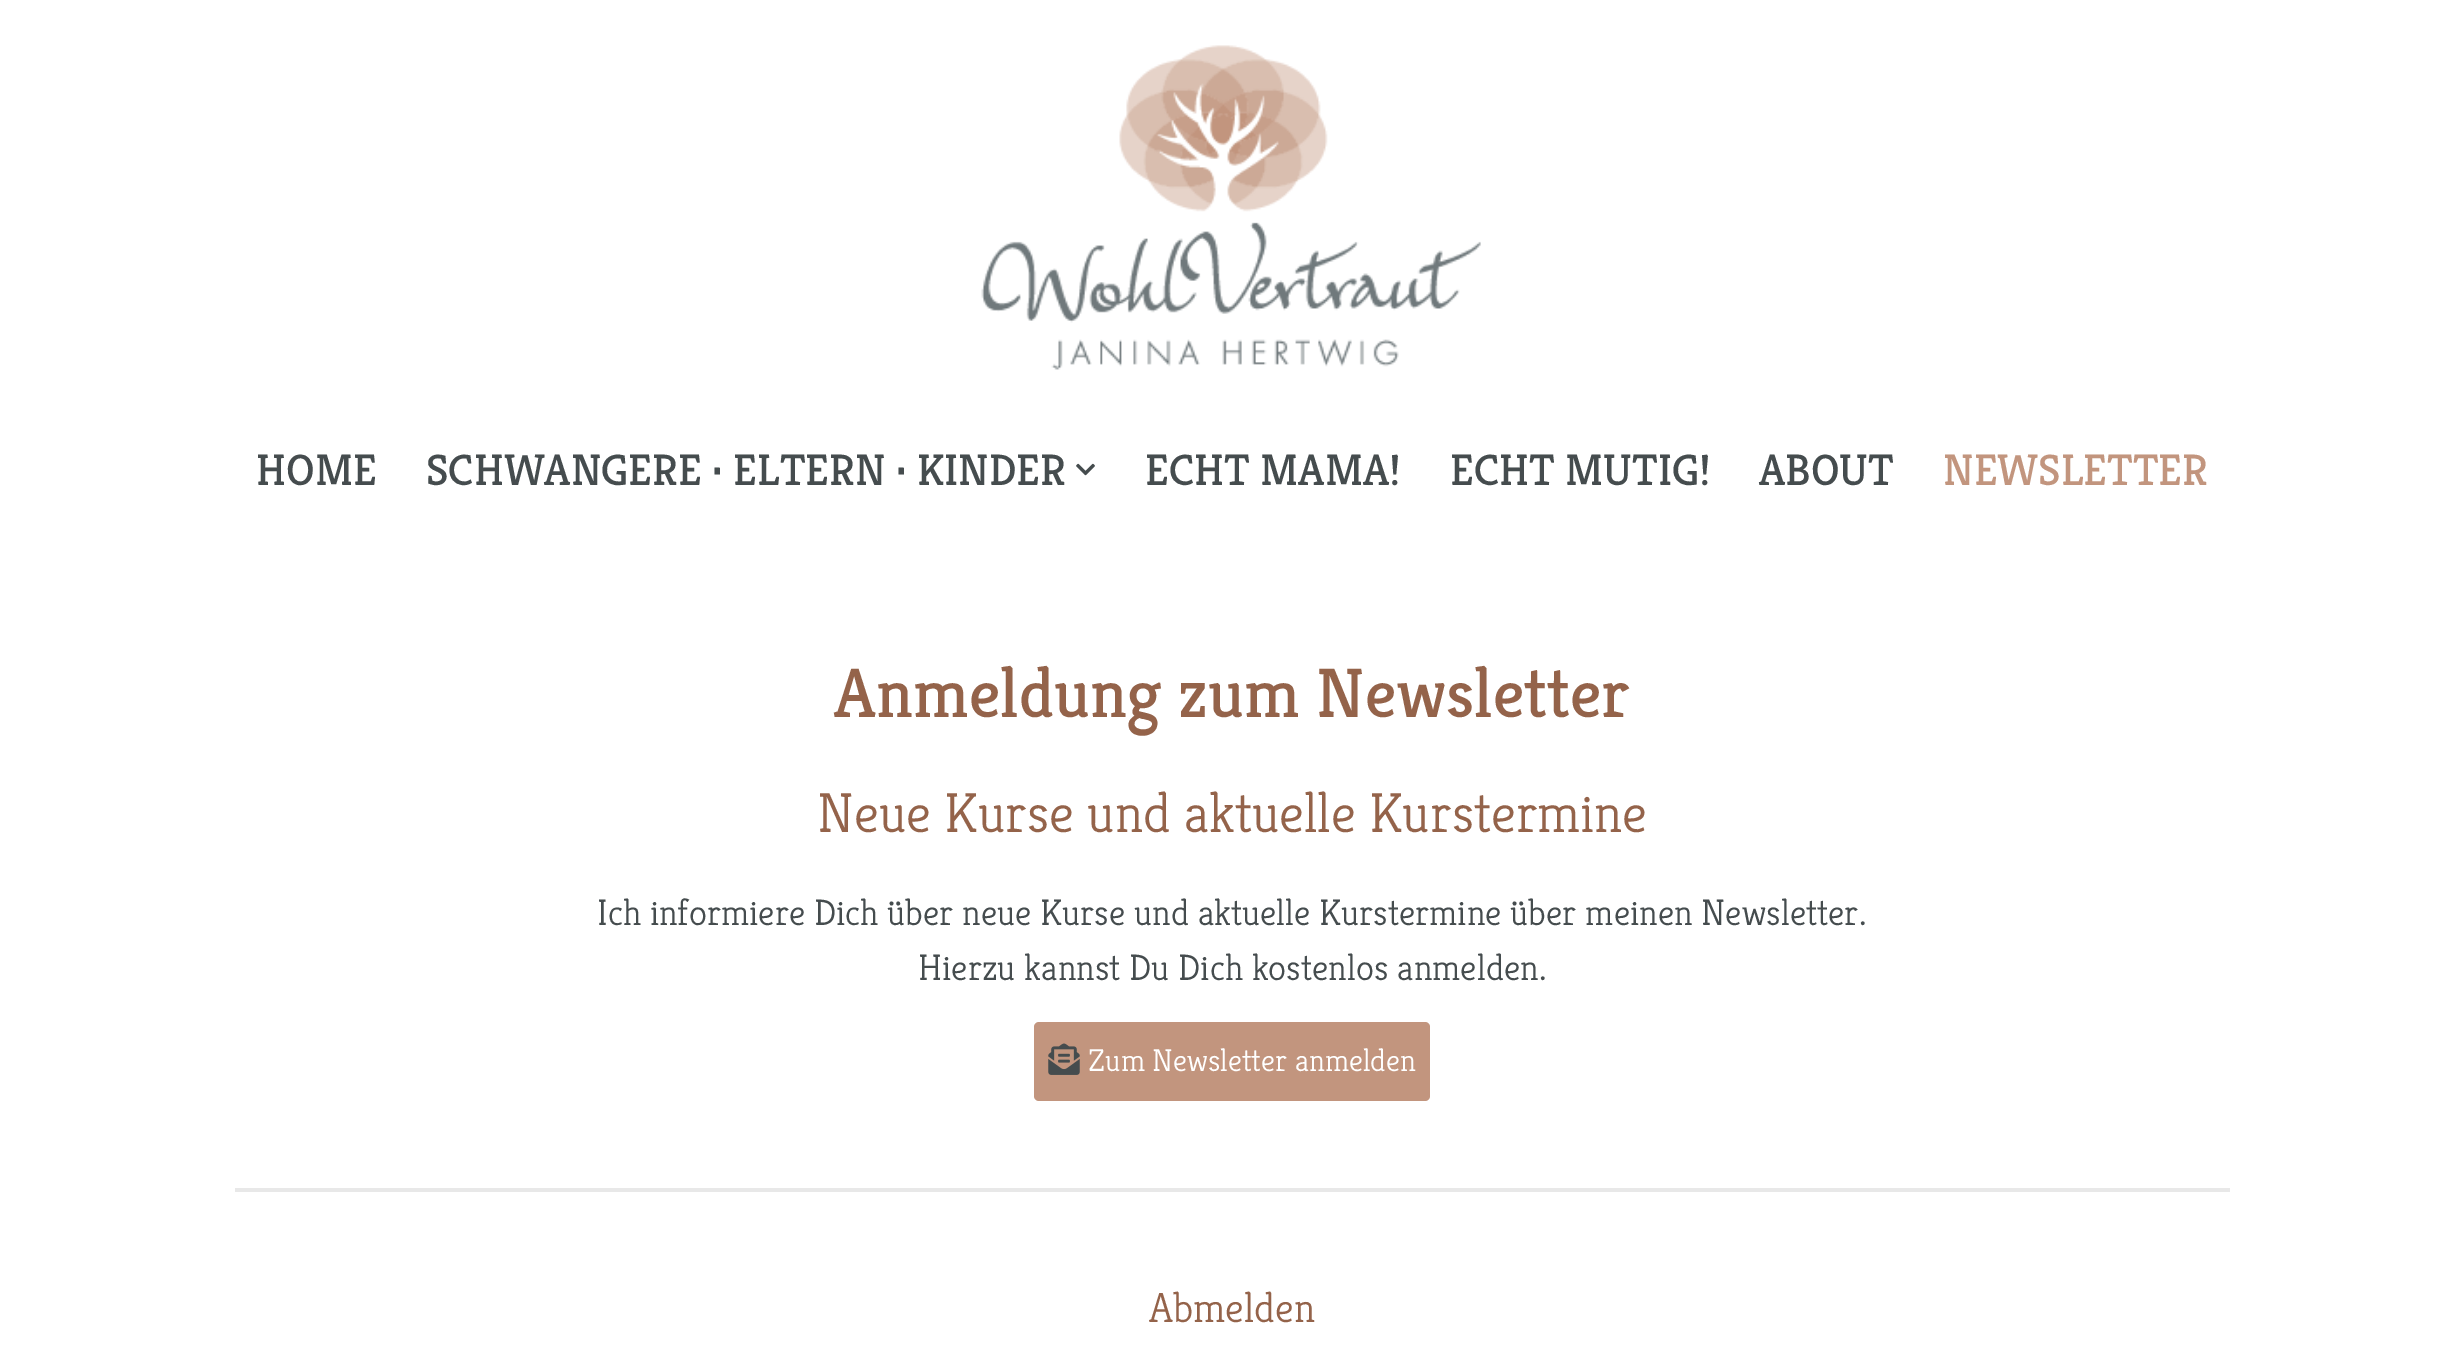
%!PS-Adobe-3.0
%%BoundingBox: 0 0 2463 1347
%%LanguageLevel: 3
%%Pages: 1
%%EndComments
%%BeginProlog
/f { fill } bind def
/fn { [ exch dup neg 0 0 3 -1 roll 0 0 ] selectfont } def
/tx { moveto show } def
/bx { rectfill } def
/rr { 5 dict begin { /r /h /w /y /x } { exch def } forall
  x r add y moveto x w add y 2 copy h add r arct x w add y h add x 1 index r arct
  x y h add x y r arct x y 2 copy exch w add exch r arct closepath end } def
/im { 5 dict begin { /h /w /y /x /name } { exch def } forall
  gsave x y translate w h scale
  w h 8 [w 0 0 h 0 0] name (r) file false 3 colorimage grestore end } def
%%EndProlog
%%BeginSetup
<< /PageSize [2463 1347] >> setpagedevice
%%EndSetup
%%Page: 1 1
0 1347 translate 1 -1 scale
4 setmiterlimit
1 setgray
0 0 2463 1347 bx
(image0.raw) 981 45 500 325 im
/Kreon-Regular 44.1 fn
0.271 0.298 0.306 setrgbcolor
(HOME) 256 485 tx
(SCHWANGERE · ELTERN · KINDER) 426 485 tx
(image1.raw) 1076 463 19 13 im
(ECHT MAMA!) 1145 485 tx
(ECHT MUTIG!) 1450 485 tx
(ABOUT) 1759 485 tx
0.761 0.584 0.494 setrgbcolor
(NEWSLETTER) 1943 485 tx
/Kreon-Regular 70 fn
0.58 0.388 0.29 setrgbcolor
(Anmeldung zum Newsletter) 834 717 tx
/Kreon-Light 56 fn
(Neue Kurse und aktuelle Kurstermine) 817 832 tx
/Kreon-Light 36.75 fn
0.271 0.298 0.306 setrgbcolor
(Ich informiere Dich über neue Kurse und aktuelle Kurstermine über meinen Newsletter.) 597 925 tx
(Hierzu kannst Du Dich kostenlos anmelden.) 918 980 tx
0.761 0.584 0.494 setrgbcolor
1034 1022 396 79 5 rr f
(image2.raw) 1048 1043 32 32 im
/Kreon-Light 31.5 fn
1 setgray
(Zum Newsletter anmelden) 1088 1071 tx
0.91 setgray
235 1188 1995 4 bx
/Kreon-Light 42 fn
0.58 0.388 0.29 setrgbcolor
(Abmelden) 1149 1322 tx
showpage
%%EOF
